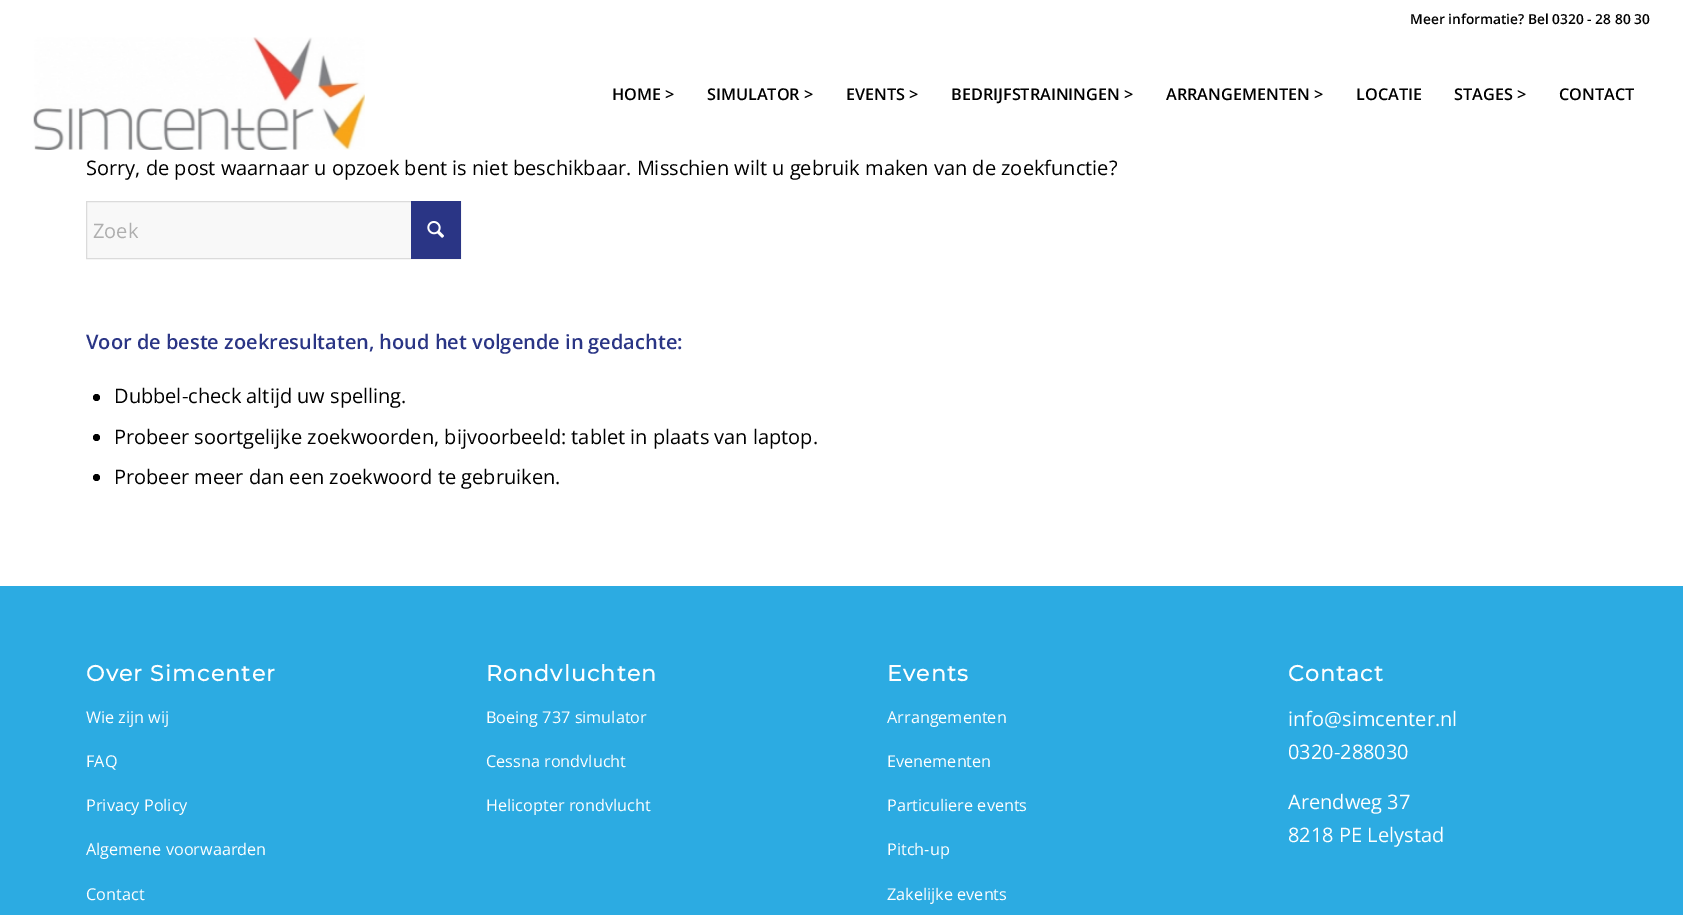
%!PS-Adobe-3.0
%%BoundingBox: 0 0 1683 915
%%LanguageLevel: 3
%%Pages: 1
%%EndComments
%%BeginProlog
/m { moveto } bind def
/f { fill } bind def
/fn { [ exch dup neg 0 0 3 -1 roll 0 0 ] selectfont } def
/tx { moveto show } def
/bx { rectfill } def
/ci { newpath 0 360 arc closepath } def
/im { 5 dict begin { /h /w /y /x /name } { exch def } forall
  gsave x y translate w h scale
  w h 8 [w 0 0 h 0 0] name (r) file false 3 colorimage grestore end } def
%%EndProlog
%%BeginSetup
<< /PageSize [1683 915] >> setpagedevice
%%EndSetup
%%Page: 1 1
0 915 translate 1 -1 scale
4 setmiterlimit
1 setgray
0 0 1683 915 bx
/OpenSans-SemiBold 13.75 fn
0 setgray
(Meer informatie? Bel 0320 - 28 80 30) 1410 24 tx
(image0.raw) 33 37 332 113 im
/OpenSans-SemiBold 16.25 fn
(HOME >) 612 100 tx
(SIMULATOR >) 707 100 tx
(EVENTS >) 846 100 tx
(BEDRIJFSTRAININGEN >) 951 100 tx
(ARRANGEMENTEN >) 1166 100 tx
(LOCATIE) 1356 100 tx
(STAGES >) 1454 100 tx
(CONTACT) 1559 100 tx
/OpenSans-Regular 20 fn
(Sorry, de post waarnaar u opzoek bent is niet beschikbaar. Misschien wilt u gebruik maken van de zoekfunctie?) 86 175 tx
0.973 setgray
87 202 324 56 bx
0.859 setgray
86.5 201.5 374 57 rectstroke
0.165 0.208 0.522 setrgbcolor
411 201 50 58 bx
0.686 setgray
(Zoek) 93 238 tx
(image1.raw) 427 221 17 17 im
/OpenSans-SemiBold 20 fn
0.165 0.208 0.522 setrgbcolor
(Voor de beste zoekresultaten, houd het volgende in gedachte:) 86 349 tx
0 setgray
96.5 397.5 3.5 ci f
/OpenSans-Regular 20 fn
(Dubbel-check altijd uw spelling.) 114 403 tx
96.5 437.5 3.5 ci f
(Probeer soortgelijke zoekwoorden, bijvoorbeeld: tablet in plaats van laptop.) 114 444 tx
96.5 477.5 3.5 ci f
(Probeer meer dan een zoekwoord te gebruiken.) 114 484 tx
0.173 0.671 0.886 setrgbcolor
0 586 1683 329 bx
/Montserrat-Bold 22 fn
1 setgray
86 681 m 1.25 0 (Over Simcenter) ashow
/OpenSans-Regular 16.25 fn
(Wie zijn wij) 86 723 tx
(FAQ) 86 767 tx
(Privacy Policy) 86 811 tx
(Algemene voorwaarden) 86 855 tx
(Contact) 86 900 tx
/Montserrat-Bold 22 fn
486 681 m 1.25 0 (Rondvluchten) ashow
/OpenSans-Regular 16.25 fn
(Boeing 737 simulator) 486 723 tx
(Cessna rondvlucht) 486 767 tx
(Helicopter rondvlucht) 486 811 tx
/Montserrat-Bold 22 fn
887 681 m 1.25 0 (Events) ashow
/OpenSans-Regular 16.25 fn
(Arrangementen) 887 723 tx
(Evenementen) 887 767 tx
(Particuliere events) 887 811 tx
(Pitch-up) 887 855 tx
(Zakelijke events) 887 900 tx
/Montserrat-Bold 22 fn
1288 681 m 1.25 0 (Contact) ashow
/OpenSans-Regular 20 fn
(info@simcenter.nl) 1288 726 tx
(0320-288030) 1288 759 tx
(Arendweg 37) 1288 809 tx
(8218 PE Lelystad) 1288 842 tx
showpage
%%EOF
